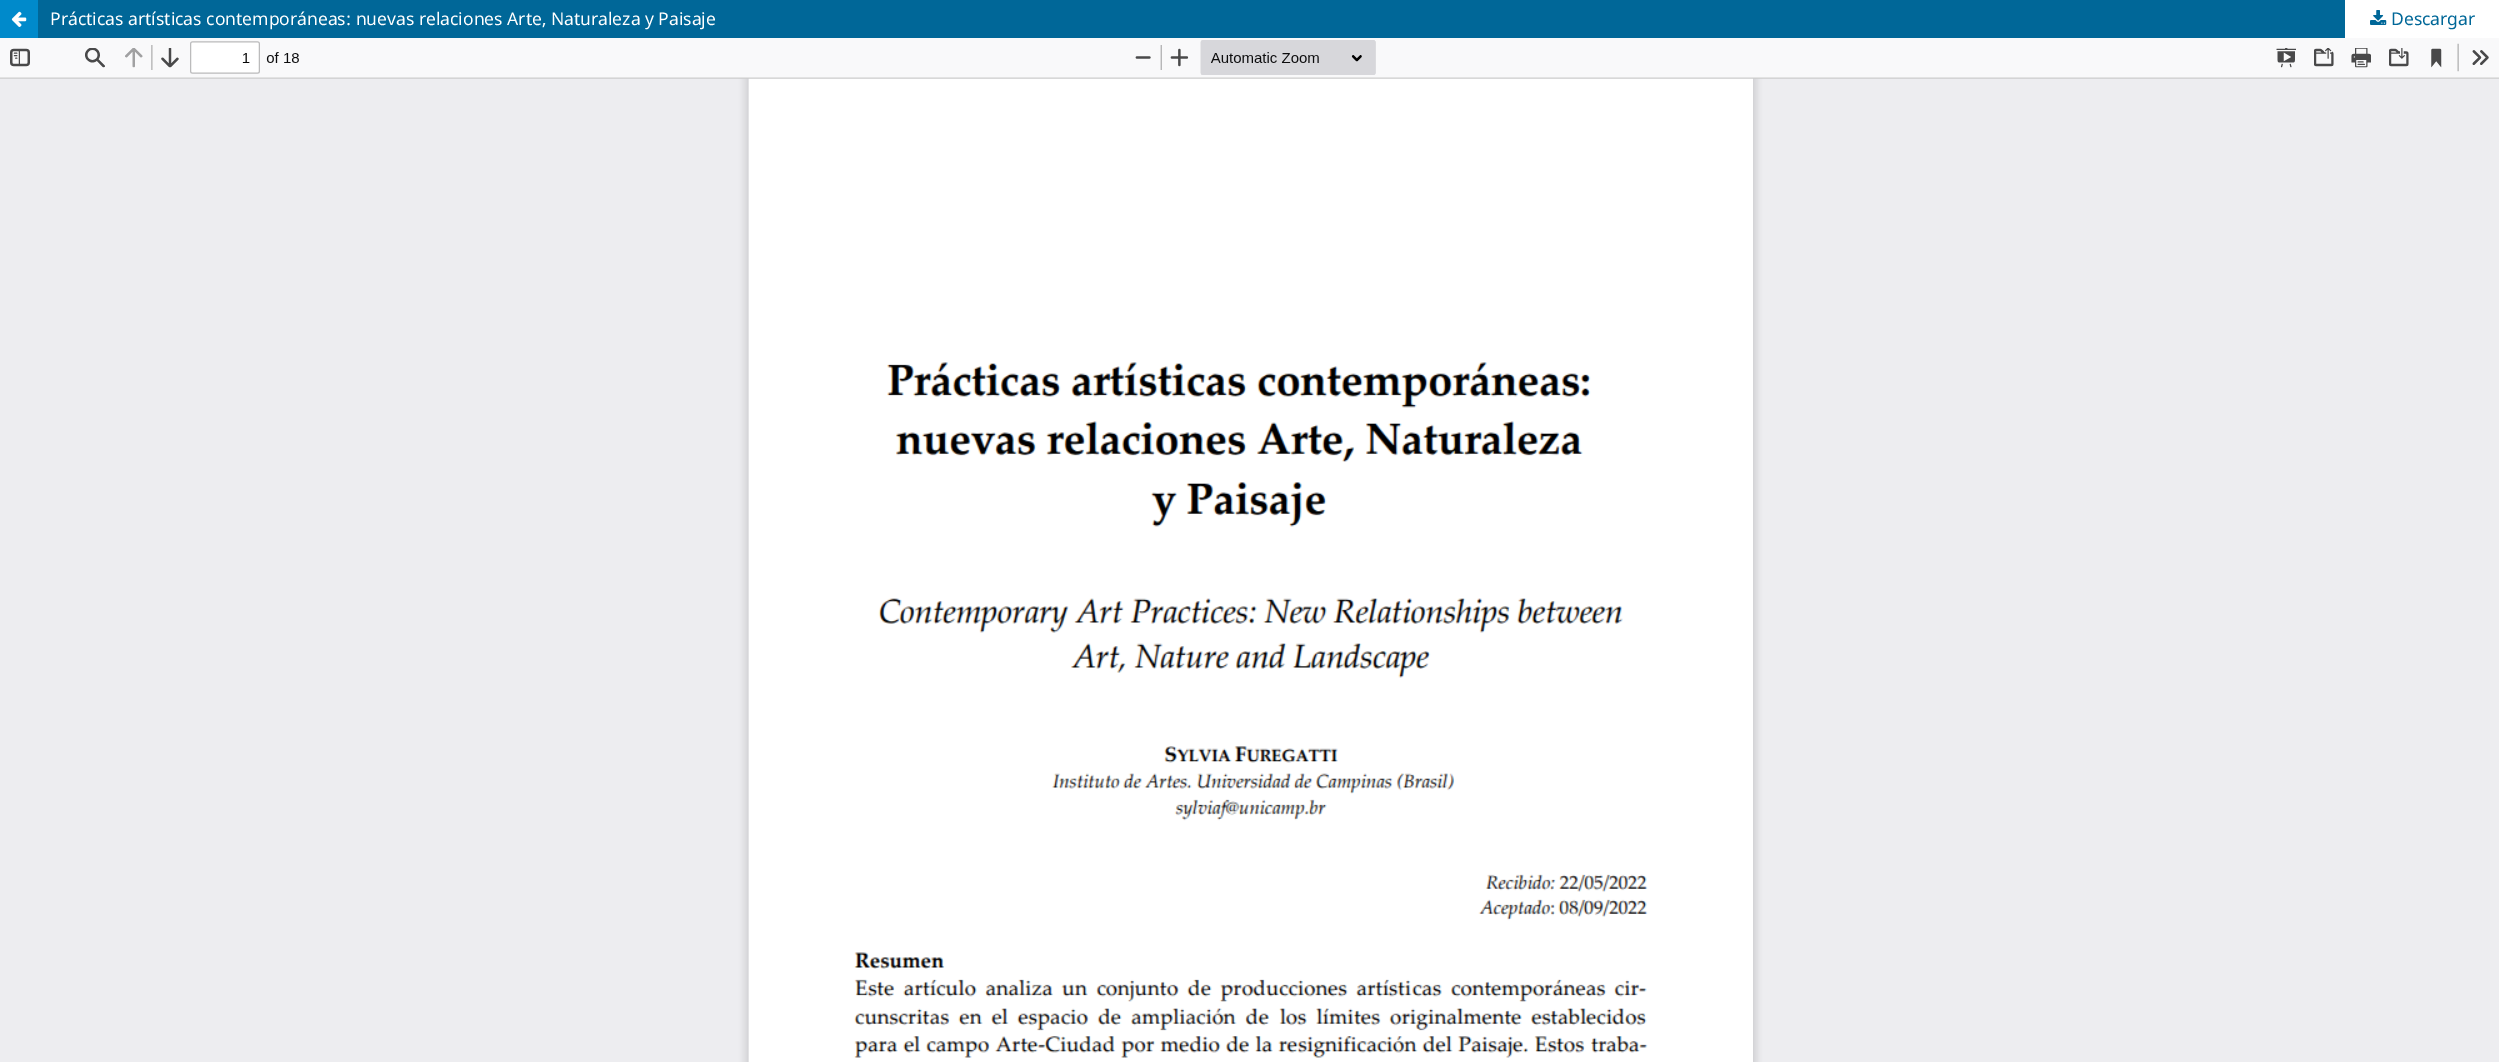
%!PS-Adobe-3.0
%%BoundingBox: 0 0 2499 1062
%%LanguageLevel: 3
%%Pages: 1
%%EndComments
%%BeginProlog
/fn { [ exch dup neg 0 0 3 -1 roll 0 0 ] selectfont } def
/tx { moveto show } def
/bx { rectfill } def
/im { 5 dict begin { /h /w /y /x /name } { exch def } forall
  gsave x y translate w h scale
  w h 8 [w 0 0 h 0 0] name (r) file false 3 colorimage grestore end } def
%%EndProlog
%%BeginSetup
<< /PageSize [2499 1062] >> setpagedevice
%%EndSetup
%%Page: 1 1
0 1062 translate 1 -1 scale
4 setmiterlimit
1 setgray
0 0 2499 1062 bx
0 0.404 0.596 setrgbcolor
38 0 2307 38 bx
0 0.541 0.796 setrgbcolor
0 0 38 38 bx
(image0.raw) 11 11 16 16 im
/NotoSans-Regular 17.5 fn
1 setgray
(Prácticas artísticas contemporáneas: nuevas relaciones Arte, Naturaleza y Paisaje) 50 25 tx
(image1.raw) 2370 10 17 15 im
0 0.404 0.596 setrgbcolor
(Descargar) 2391 25 tx
(image2.raw) 0 38 2499 1024 im
showpage
%%EOF
